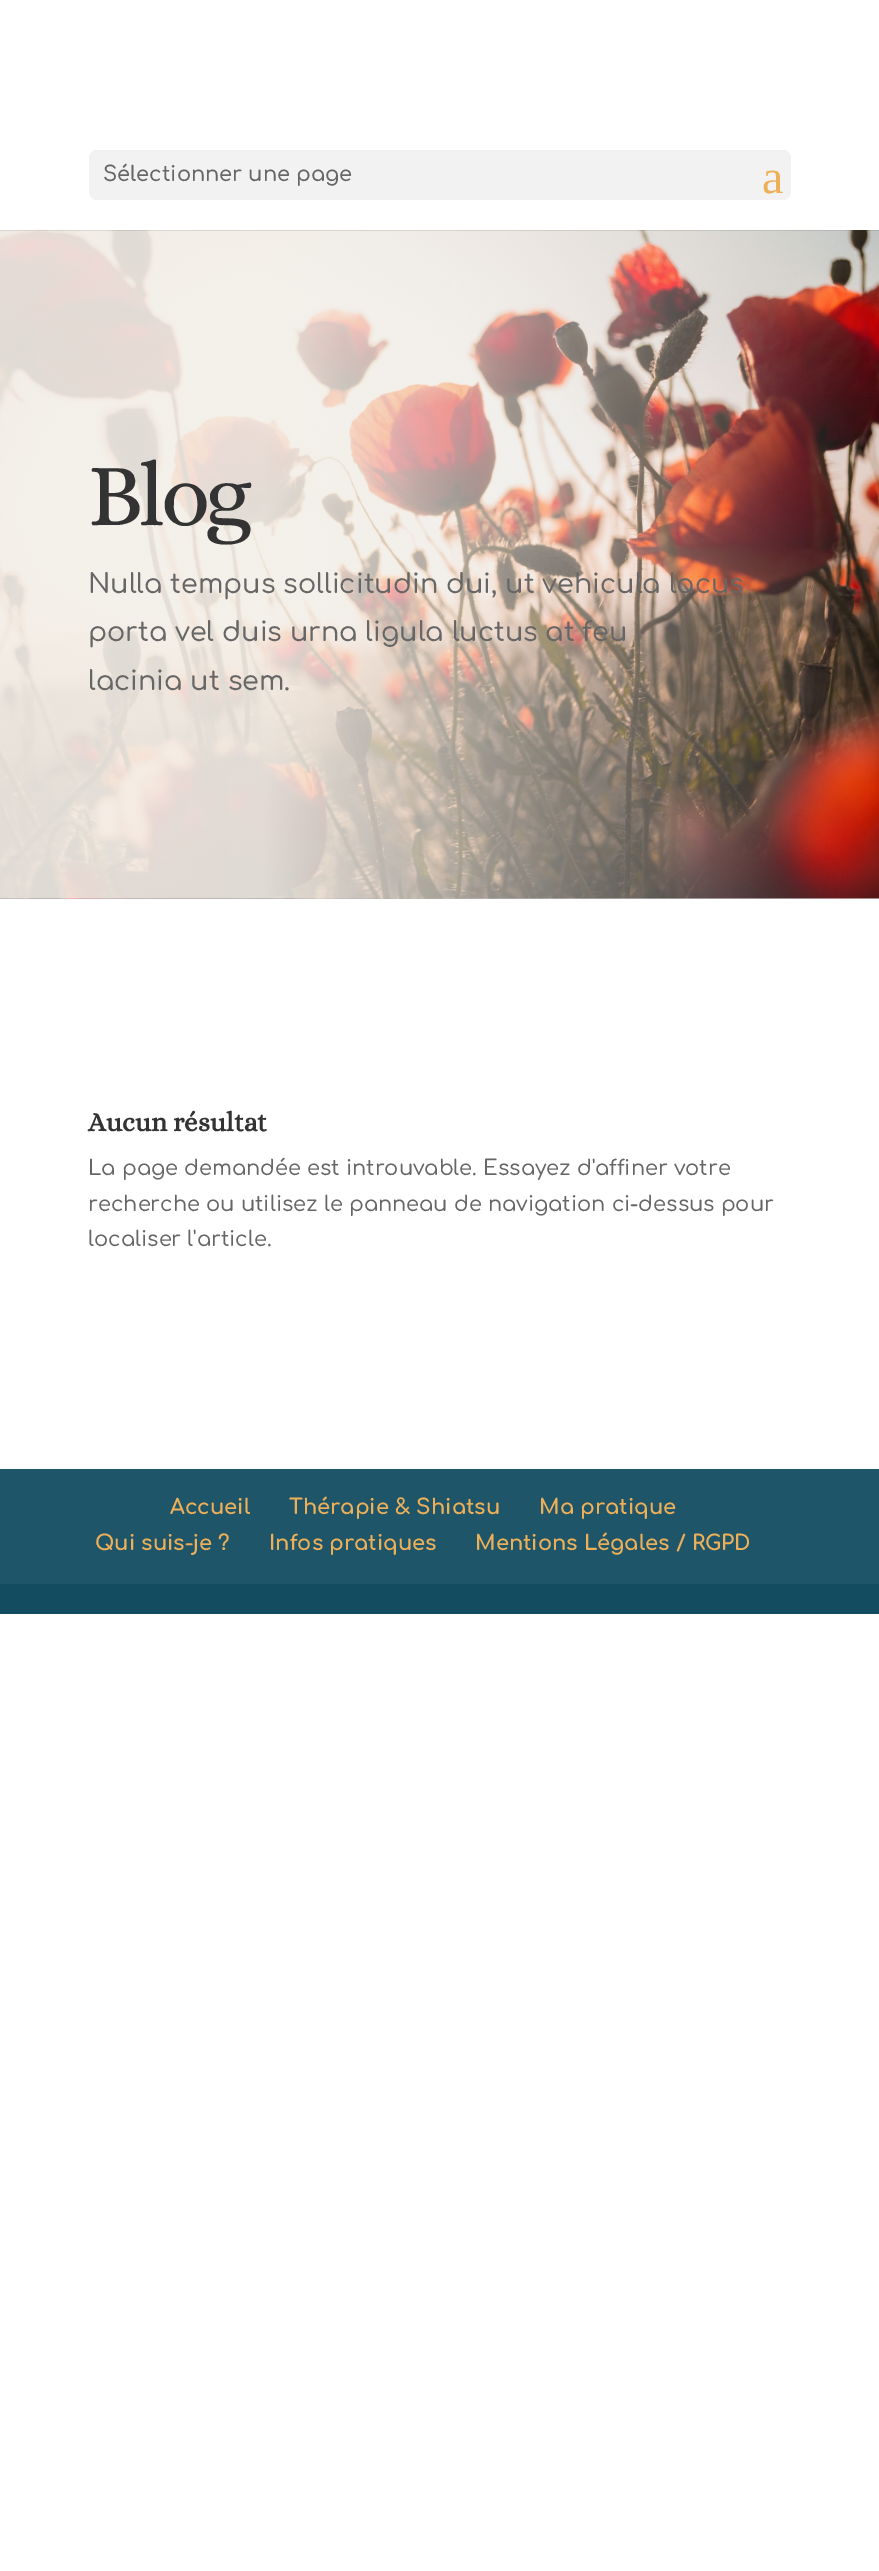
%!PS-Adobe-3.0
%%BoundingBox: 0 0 879 2571
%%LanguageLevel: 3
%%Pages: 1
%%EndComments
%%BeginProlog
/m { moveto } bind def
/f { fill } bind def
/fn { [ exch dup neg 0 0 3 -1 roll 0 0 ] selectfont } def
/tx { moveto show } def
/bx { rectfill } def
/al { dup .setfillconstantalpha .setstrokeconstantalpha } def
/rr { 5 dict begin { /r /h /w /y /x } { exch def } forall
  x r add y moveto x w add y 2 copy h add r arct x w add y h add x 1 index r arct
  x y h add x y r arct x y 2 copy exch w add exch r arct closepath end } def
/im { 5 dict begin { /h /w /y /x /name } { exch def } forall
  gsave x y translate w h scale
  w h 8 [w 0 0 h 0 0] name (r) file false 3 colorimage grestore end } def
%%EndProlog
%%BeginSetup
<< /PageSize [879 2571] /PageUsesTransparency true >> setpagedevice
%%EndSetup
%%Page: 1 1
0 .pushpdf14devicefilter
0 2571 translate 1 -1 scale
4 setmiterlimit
1 setgray
0 0 879 2571 bx
(image0.raw) 0 230 879 669 im
0.1 al
0 setgray
0 230 879 1 bx
1 al
0.949 setgray
89 150 702 50 8 rr f
/Comfortaa-SemiBold 21 fn
0.4 setgray
(Sélectionner une page) 103 181 tx
/LiberationSerif-Regular 48 fn
0.929 0.69 0.349 setrgbcolor
(a) 762 193 tx
/Alice-Regular 90 fn
0.2 setgray
88 525 m -4.5 0 (Blog) ashow
/Comfortaa-Medium 27 fn
0.4 setgray
(Nulla tempus sollicitudin dui, ut vehicula lacus) 88 593 tx
(porta vel duis urna ligula luctus at feu) 88 641 tx
(lacinia ut sem.) 88 690 tx
/Alice-Bold 27 fn
0.2 setgray
(Aucun résultat) 88 1131 tx
/Comfortaa-Medium 21 fn
0.4 setgray
(La page demandée est introuvable. Essayez d'affiner votre) 88 1175 tx
(recherche ou utilisez le panneau de navigation ci-dessus pour) 88 1211 tx
(localiser l'article.) 88 1246 tx
0.075 0.298 0.376 setrgbcolor
0 1584 879 30 bx
0.122 0.333 0.408 setrgbcolor
0 1469 879 115 bx
/Comfortaa-Bold 21 fn
0.929 0.69 0.349 setrgbcolor
(Accueil) 170 1514 tx
(Thérapie & Shiatsu) 289 1514 tx
(Ma pratique) 539 1514 tx
(Qui suis-je ?) 95 1550 tx
(Infos pratiques) 269 1550 tx
(Mentions Légales / RGPD) 475 1550 tx
.poppdf14devicefilter showpage
%%EOF
